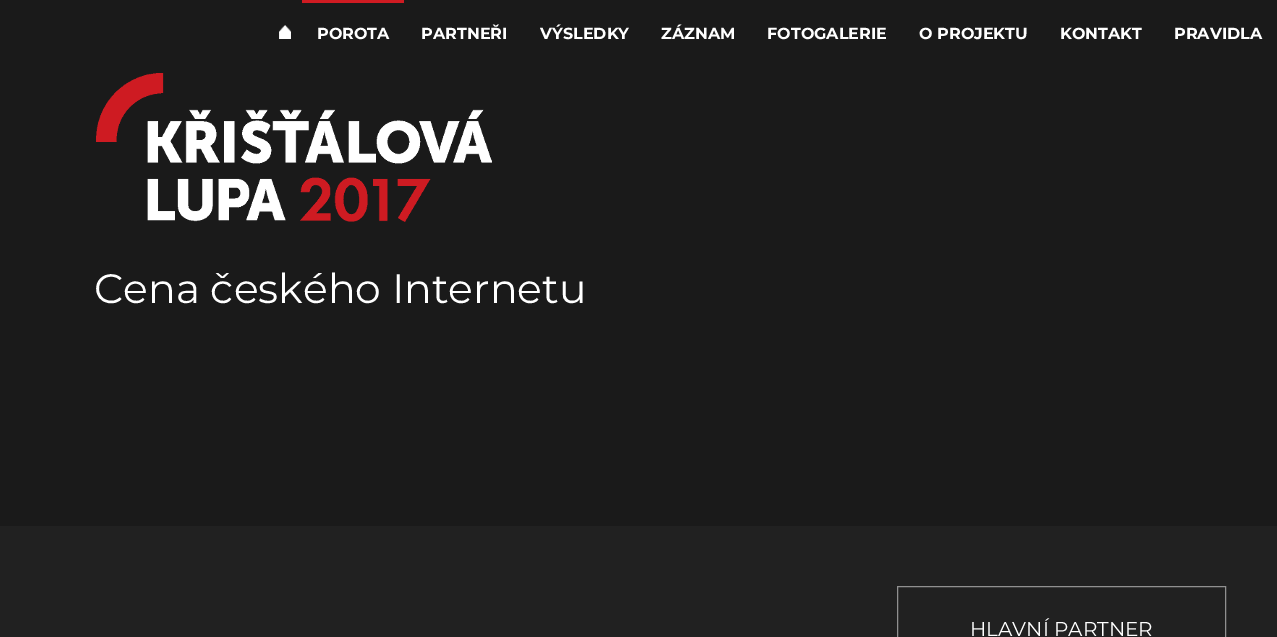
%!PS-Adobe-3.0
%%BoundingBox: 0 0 1277 637
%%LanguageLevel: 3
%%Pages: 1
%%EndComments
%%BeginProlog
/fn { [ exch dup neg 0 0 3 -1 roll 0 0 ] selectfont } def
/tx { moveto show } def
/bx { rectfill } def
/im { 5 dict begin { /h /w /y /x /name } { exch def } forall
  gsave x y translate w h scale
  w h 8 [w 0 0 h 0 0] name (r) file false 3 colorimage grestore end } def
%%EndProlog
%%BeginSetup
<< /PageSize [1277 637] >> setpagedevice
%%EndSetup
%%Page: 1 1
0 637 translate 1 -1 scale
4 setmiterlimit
0.102 setgray
0 0 1277 637 bx
(image0.raw) 279 25 12 14 im
0.812 0.106 0.133 setrgbcolor
302 0 102 3 bx
/Montserrat-Bold 16 fn
1 setgray
(POROTA) 317 39 tx
(PARTNEŘI) 421 39 tx
(VÝSLEDKY) 540 39 tx
(ZÁZNAM) 661 39 tx
(FOTOGALERIE) 767 39 tx
(O PROJEKTU) 919 39 tx
(KONTAKT) 1060 39 tx
(PRAVIDLA) 1174 39 tx
(image1.raw) 96 73 396 149 im
/Montserrat-Regular 41 fn
(Cena českého Internetu) 94 303 tx
0.129 setgray
1219 526 58 111 bx
0 526 1219 111 bx
0.565 setgray
897.5 586.5 328 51 rectstroke
/Montserrat-Regular 20 fn
1 setgray
(HLAVNÍ PARTNER) 970 636 tx
showpage
%%EOF
